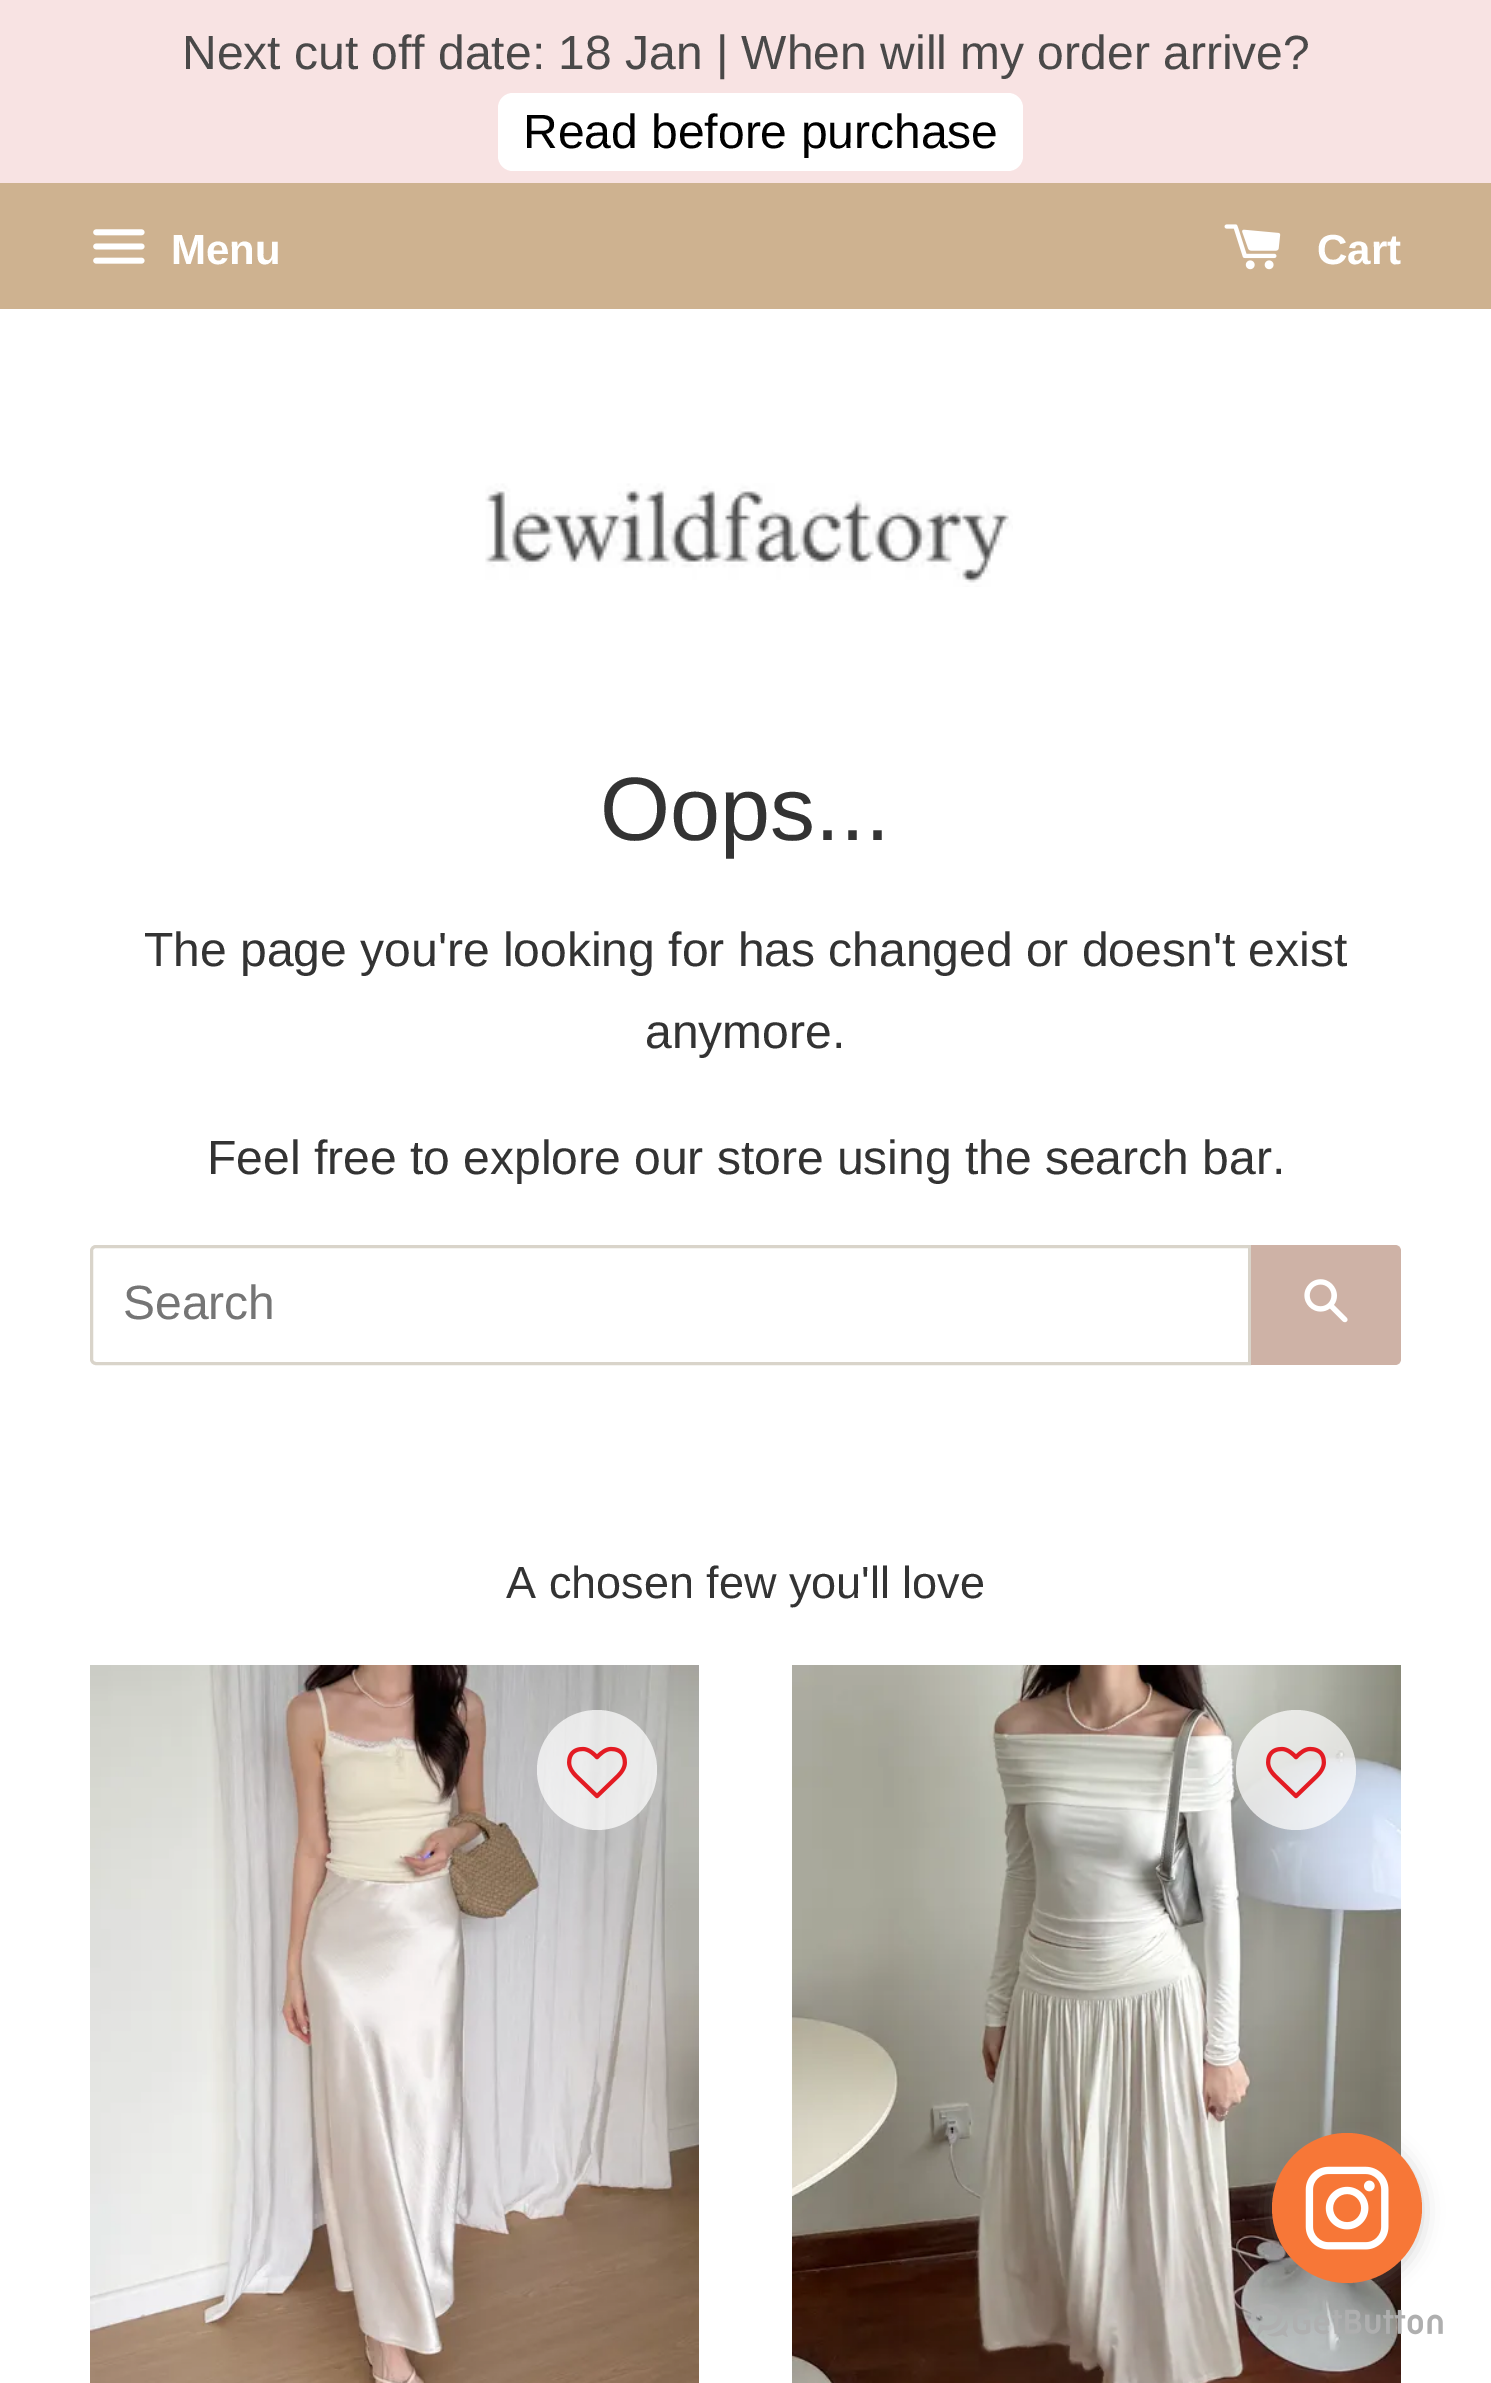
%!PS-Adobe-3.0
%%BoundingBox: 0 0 1491 2383
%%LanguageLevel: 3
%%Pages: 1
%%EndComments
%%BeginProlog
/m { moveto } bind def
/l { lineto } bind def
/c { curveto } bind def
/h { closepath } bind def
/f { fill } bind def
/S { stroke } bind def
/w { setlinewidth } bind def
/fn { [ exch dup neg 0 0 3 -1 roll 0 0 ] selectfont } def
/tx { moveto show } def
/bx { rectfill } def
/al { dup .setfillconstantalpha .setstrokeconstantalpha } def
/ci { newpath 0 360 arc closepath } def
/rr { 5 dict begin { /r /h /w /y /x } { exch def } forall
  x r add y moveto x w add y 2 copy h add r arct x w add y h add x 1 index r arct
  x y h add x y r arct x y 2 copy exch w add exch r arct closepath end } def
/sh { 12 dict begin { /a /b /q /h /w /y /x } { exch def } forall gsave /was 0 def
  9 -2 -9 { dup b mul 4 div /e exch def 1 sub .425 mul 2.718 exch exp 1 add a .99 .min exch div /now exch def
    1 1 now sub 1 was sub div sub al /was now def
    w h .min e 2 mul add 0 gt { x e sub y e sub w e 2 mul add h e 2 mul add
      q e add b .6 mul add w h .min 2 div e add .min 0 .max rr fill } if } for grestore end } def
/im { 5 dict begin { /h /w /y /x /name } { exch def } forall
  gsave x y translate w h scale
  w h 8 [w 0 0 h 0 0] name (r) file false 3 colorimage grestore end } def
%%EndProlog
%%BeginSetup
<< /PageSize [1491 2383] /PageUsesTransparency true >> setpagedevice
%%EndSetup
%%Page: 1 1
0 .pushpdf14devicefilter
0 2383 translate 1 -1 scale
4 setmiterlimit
1 setgray
0 0 1491 2383 bx
0.973 0.89 0.89 setrgbcolor
0 0 1491 183 bx
/LiberationSans-Regular 48 fn
0.29 0.286 0.286 setrgbcolor
(Next cut off date: 18 Jan | When will my order arrive?) 182 69 tx
1 setgray
498 93 525 78 15 rr f
0 setgray
(Read before purchase) 523 148 tx
0.808 0.698 0.565 setrgbcolor
0 183 1491 126 bx
(image0.raw) 93 229 52 35 im
/LiberationSans-Bold 42 fn
1 setgray
(Menu) 171 264 tx
(image1.raw) 1224 224 57 46 im
(Cart) 1317 264 tx
(image2.raw) 485 483 528 104 im
/LiberationSans-Regular 90 fn
0.2 setgray
(Oops...) 600 840 tx
/LiberationSans-Regular 48 fn
(The page you're looking for has changed or doesn't exist) 144 966 tx
(anymore.) 645 1048 tx
(Feel free to explore our store using the search bar.) 207 1174 tx
0.851 0.831 0.792 setrgbcolor
3 w
96 1246.5 m 1249.5 1246.5 l 1249.5 1363.5 l 96 1363.5 l 93.5 1363.5 91.5 1361.5 91.5 1359 c 91.5 1251 l 91.5 1248.5 93.5 1246.5 96 1246.5 c h S
0.459 setgray
(Search) 123 1319 tx
0.808 0.698 0.651 setrgbcolor
1251 1245 m 1395 1245 l 1398.5 1245 1401 1247.5 1401 1251 c 1401 1359 l 1401 1362.5 1398.5 1365 1395 1365 c 1251 1365 l h f
(image3.raw) 1304 1279 44 44 im
/LiberationSans-Regular 45 fn
0.2 setgray
(A chosen few you'll love) 506 1598 tx
(image4.raw) 90 1665 609 718 im
0.7 al
1 setgray
597 1770 60 ci f
1 al
(image5.raw) 567 1746 60 53 im
(image6.raw) 792 1665 609 718 im
0.7 al
1296 1770 60 ci f
1 al
(image7.raw) 1266 1746 60 53 im
(image9.raw) 1251 2304 192 33 im
0.533 setgray
1272 2136 150 150 75 10.5 0.4 sh
0.969 0.467 0.216 setrgbcolor
1347 2208 75 ci f
(image8.raw) 1305 2166 84 84 im
.poppdf14devicefilter showpage
%%EOF
